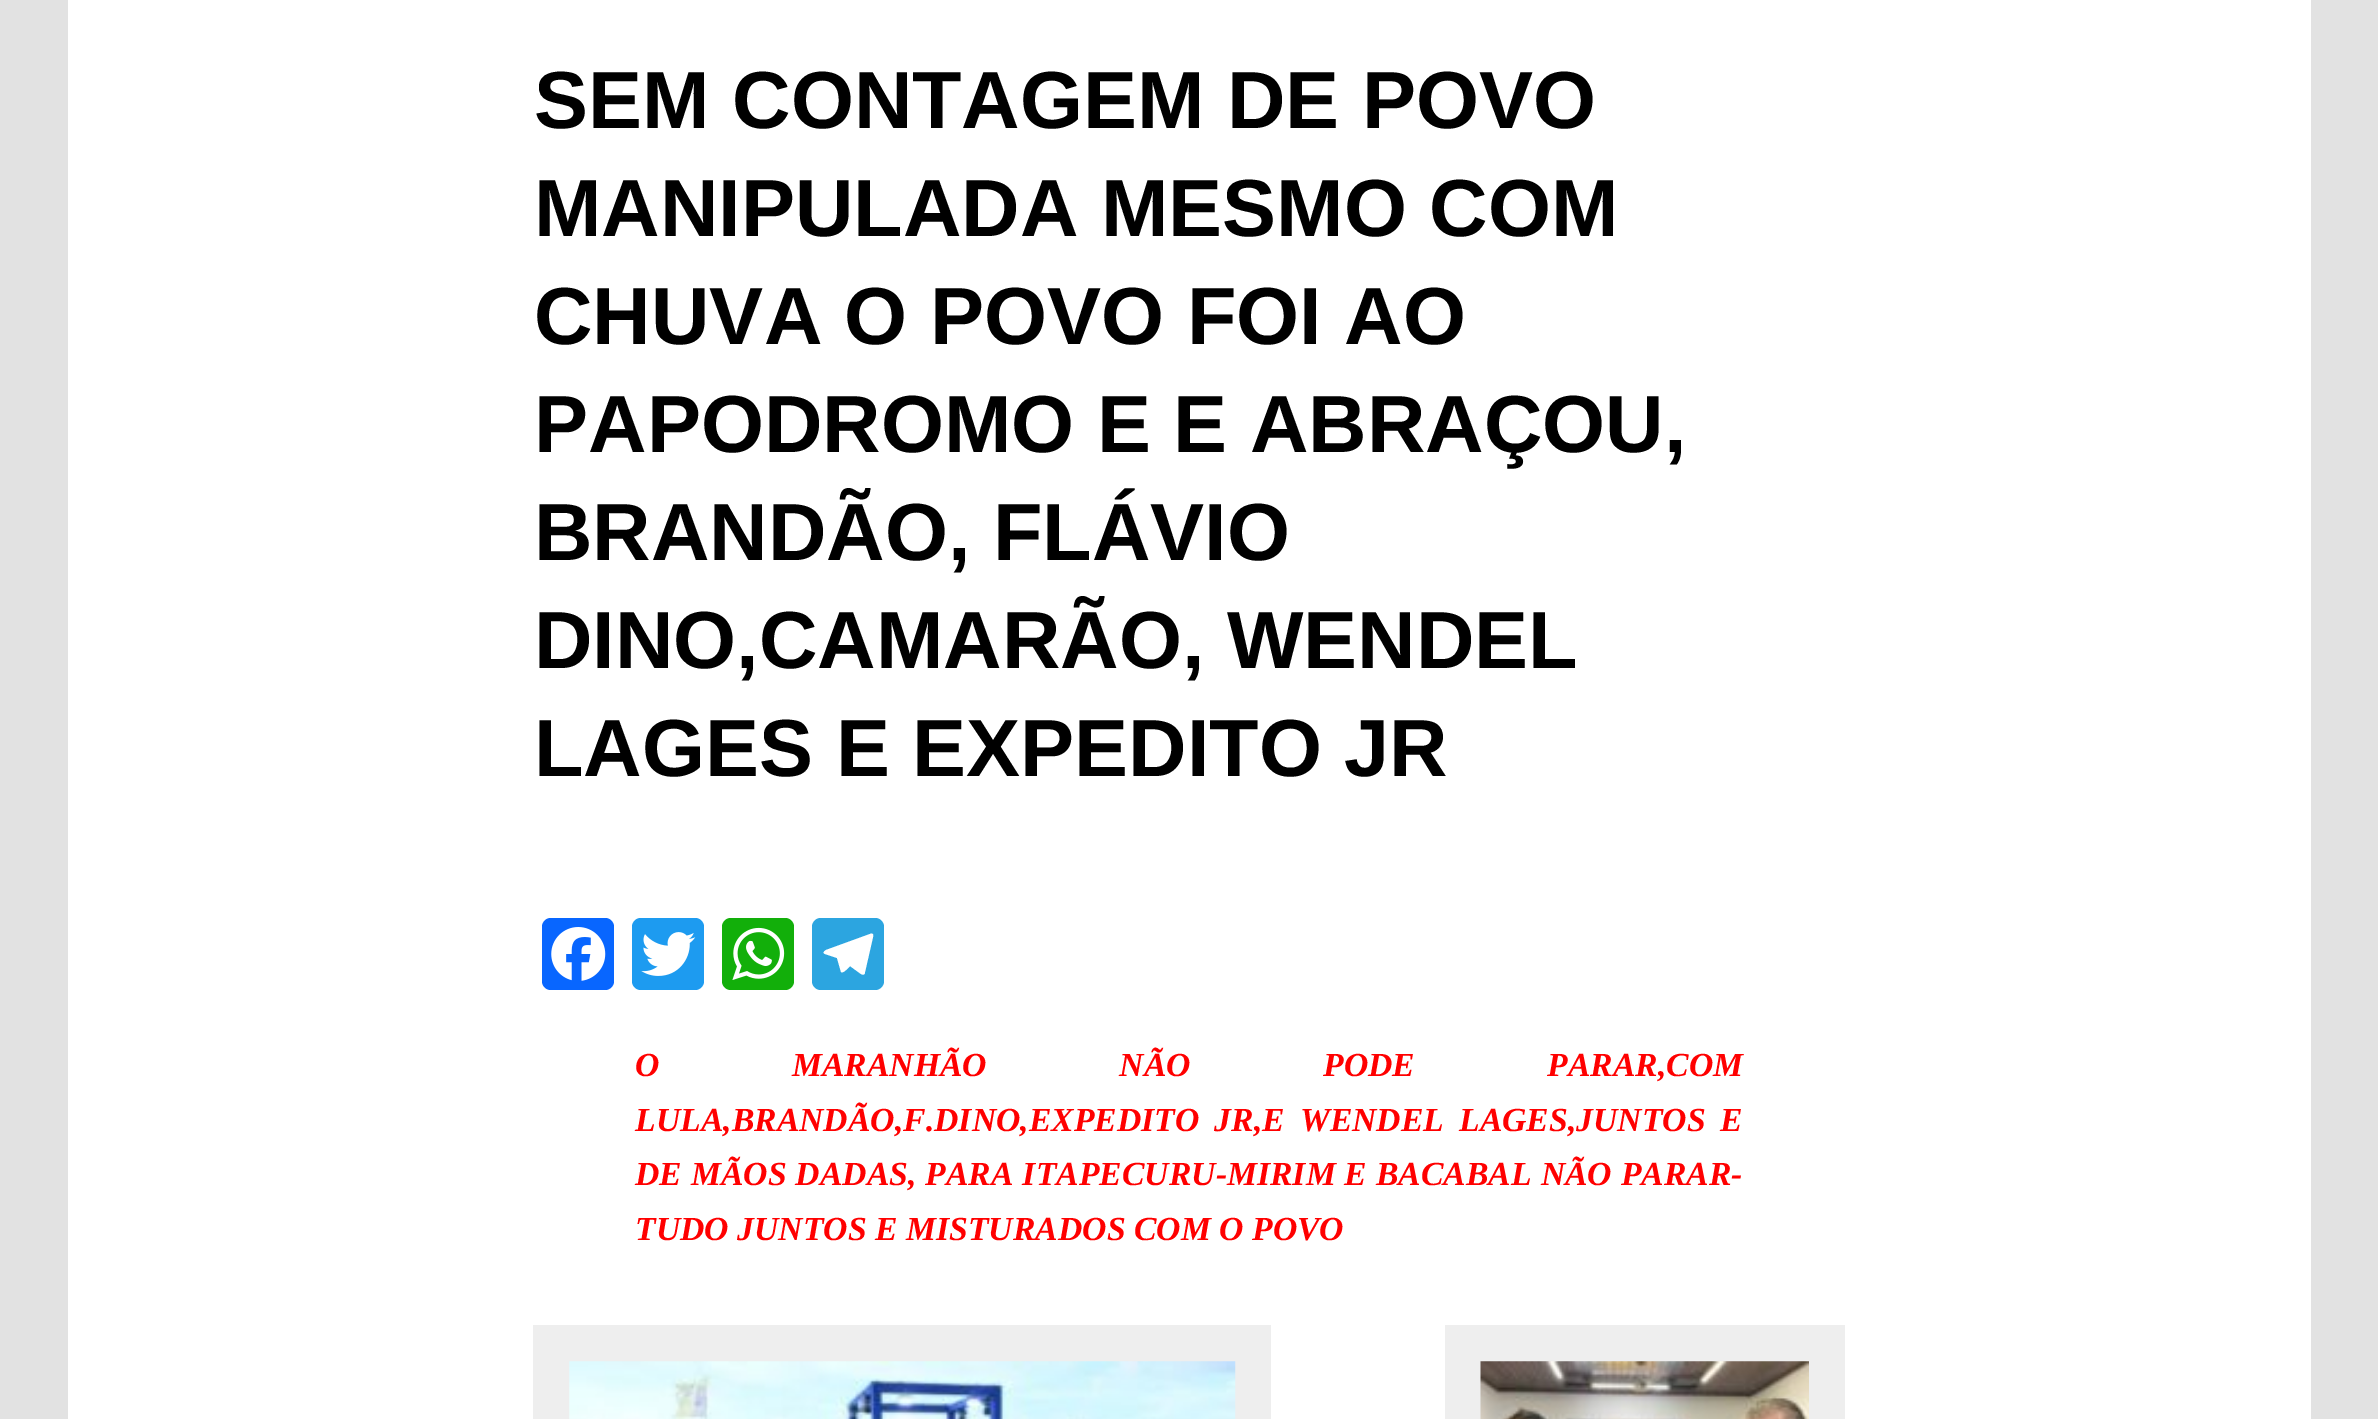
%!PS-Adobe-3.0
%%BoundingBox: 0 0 2378 1419
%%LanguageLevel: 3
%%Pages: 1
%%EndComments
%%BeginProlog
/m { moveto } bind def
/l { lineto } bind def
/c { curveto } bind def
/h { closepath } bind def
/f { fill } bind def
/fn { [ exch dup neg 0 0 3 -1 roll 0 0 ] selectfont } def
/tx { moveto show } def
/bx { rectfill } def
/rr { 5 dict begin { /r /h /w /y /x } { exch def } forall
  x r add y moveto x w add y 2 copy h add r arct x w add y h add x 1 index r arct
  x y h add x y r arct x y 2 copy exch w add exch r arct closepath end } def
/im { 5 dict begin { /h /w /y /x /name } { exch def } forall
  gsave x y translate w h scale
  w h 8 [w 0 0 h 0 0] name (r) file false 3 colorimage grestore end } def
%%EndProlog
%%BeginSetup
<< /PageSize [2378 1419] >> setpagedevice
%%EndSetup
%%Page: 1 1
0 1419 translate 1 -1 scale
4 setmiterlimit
0.886 setgray
0 0 2378 1419 bx
1 setgray
68 0 2243 1419 bx
/LiberationSans-Bold 81 fn
0 setgray
(SEM CONTAGEM DE POVO) 534 128 tx
(MANIPULADA MESMO COM) 534 236 tx
(CHUVA O POVO FOI AO) 534 344 tx
(PAPODROMO E E ABRAÇOU,) 534 452 tx
(BRANDÃO, FLÁVIO) 534 560 tx
(DINO,CAMARÃO, WENDEL) 534 668 tx
(LAGES E EXPEDITO JR) 534 776 tx
0.031 0.4 1 setrgbcolor
542 918 72 72 9 rr f
(image0.raw) 551 927 55 54 im
0.114 0.608 0.941 setrgbcolor
632 918 72 72 9 rr f
(image1.raw) 641 932 55 44 im
0.071 0.686 0.039 setrgbcolor
722 918 72 72 9 rr f
(image2.raw) 732 927 53 53 im
0.173 0.647 0.878 setrgbcolor
812 918 72 72 9 rr f
1 setgray
870 934 m 826 950 l 823 952 823 953 825 954 c 837 958 l 841 972 l 843 974 849 967 850 966 c 861 974 l 863 975 865 975 865 972 c 873 937 l 874 934 872 933 870 934 c h f
/LiberationSerif-BoldItalic 33.75 fn
1 0 0 setrgbcolor
635 1076 m 124 0 32 (O MARANHÃO NÃO PODE PARAR,COM) widthshow
635 1131 m 6.5 0 32 (LULA,BRANDÃO,F.DINO,EXPEDITO JR,E WENDEL LAGES,JUNTOS E) widthshow
635 1185 m 0.5 0 32 (DE MÃOS DADAS, PARA ITAPECURU-MIRIM E BACABAL NÃO PARAR-) widthshow
(TUDO JUNTOS E MISTURADOS COM O POVO) 635 1240 tx
0.933 setgray
533 1325 738 94 bx
(image3.raw) 569 1361 667 58 im
1445 1325 400 94 bx
(image4.raw) 1480 1361 329 58 im
showpage
%%EOF
